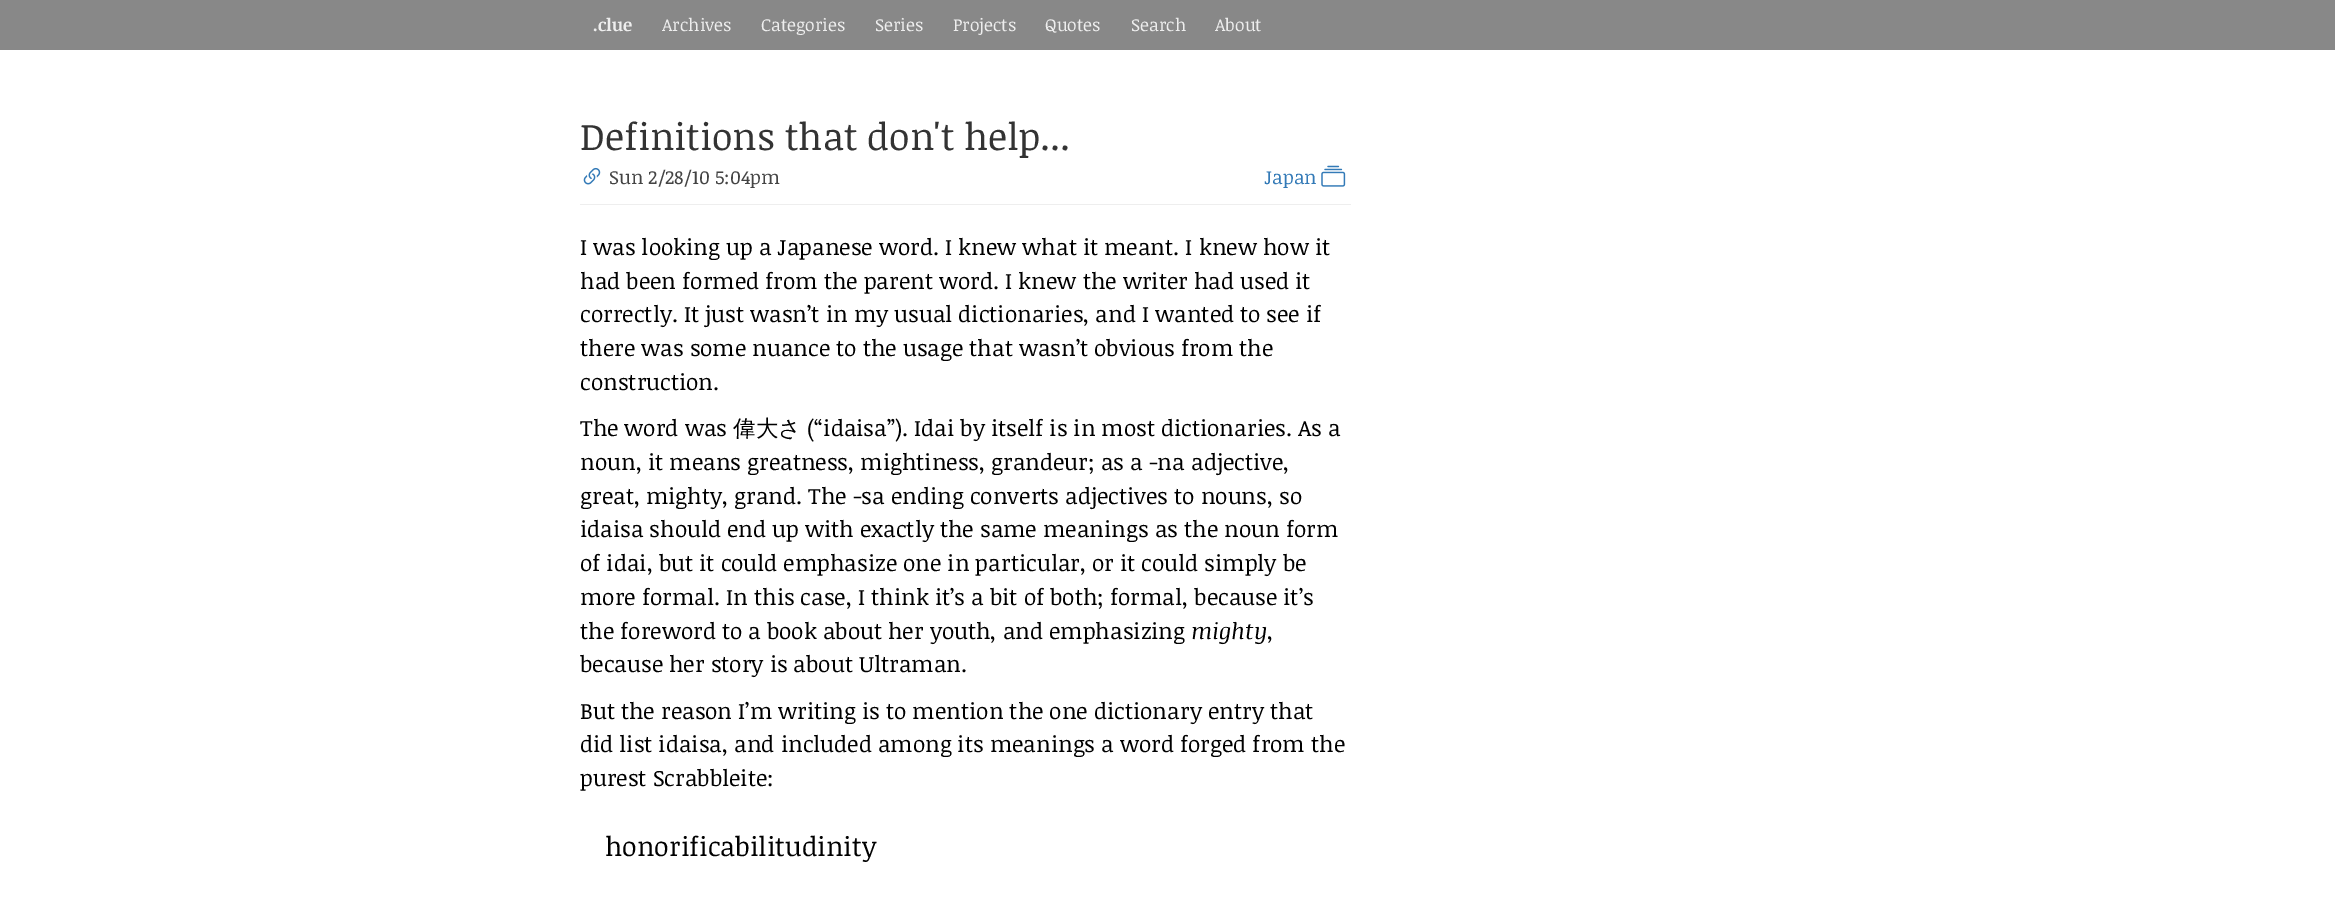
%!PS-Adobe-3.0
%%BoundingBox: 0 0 2335 922
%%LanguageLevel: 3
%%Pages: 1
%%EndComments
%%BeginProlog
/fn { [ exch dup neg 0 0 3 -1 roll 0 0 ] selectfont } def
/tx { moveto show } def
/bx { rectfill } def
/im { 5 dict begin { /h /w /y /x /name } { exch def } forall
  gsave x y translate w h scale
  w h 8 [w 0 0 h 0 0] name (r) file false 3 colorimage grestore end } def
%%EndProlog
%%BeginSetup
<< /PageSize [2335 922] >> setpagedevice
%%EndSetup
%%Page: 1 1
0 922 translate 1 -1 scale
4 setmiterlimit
1 setgray
0 0 2335 922 bx
0.533 setgray
0 0 2335 50 bx
/NoticiaText-Bold 17.5 fn
0.933 setgray
(.clue) 593 31 tx
/NoticiaText-Regular 17.5 fn
(Archives) 662 31 tx
(Categories) 761 31 tx
(Series) 875 31 tx
(Projects) 953 31 tx
(Quotes) 1045 31 tx
(Search) 1131 31 tx
(About) 1215 31 tx
/NoticiaText-Regular 37.5 fn
0.2 setgray
(Definitions that don't help...) 580 150 tx
(image0.raw) 583 167 18 18 im
/NoticiaText-Regular 19.1 fn
0.267 setgray
(Sun 2/28/10 5:04pm) 609 184 tx
0.2 0.478 0.718 setrgbcolor
(Japan) 1264 184 tx
(image1.raw) 1321 165 25 22 im
0.933 setgray
580 204 771 1 bx
/NoticiaText-Regular 22.5 fn
0 setgray
(I was looking up a Japanese word. I knew what it meant. I knew how it) 580 255 tx
(had been formed from the parent word. I knew the writer had used it) 580 289 tx
(correctly. It just wasn’t in my usual dictionaries, and I wanted to see if) 580 322 tx
(there was some nuance to the usage that wasn’t obvious from the) 580 356 tx
(construction.) 580 390 tx
(The word was) 580 436 tx
/WenQuanYiZenHei-Medium 22.5 fn
(偉大さ) 733 436 tx
/NoticiaText-Regular 22.5 fn
(\(“idaisa”\). Idai by itself is in most dictionaries. As a) 807 436 tx
(noun, it means greatness, mightiness, grandeur; as a -na adjective,) 580 470 tx
(great, mighty, grand. The -sa ending converts adjectives to nouns, so) 580 504 tx
(idaisa should end up with exactly the same meanings as the noun form) 580 537 tx
(of idai, but it could emphasize one in particular, or it could simply be) 580 571 tx
(more formal. In this case, I think it’s a bit of both; formal, because it’s) 580 605 tx
(the foreword to a book about her youth, and emphasizing) 580 639 tx
/NoticiaText-Italic 22.5 fn
(mighty) 1191 639 tx
/NoticiaText-Regular 22.5 fn
(,) 1267 639 tx
(because her story is about Ultraman.) 580 672 tx
(But the reason I’m writing is to mention the one dictionary entry that) 580 719 tx
(did list idaisa, and included among its meanings a word forged from the) 580 752 tx
(purest Scrabbleite:) 580 786 tx
/NoticiaText-Regular 26.75 fn
(honorificabilitudinity) 605 856 tx
showpage
%%EOF
